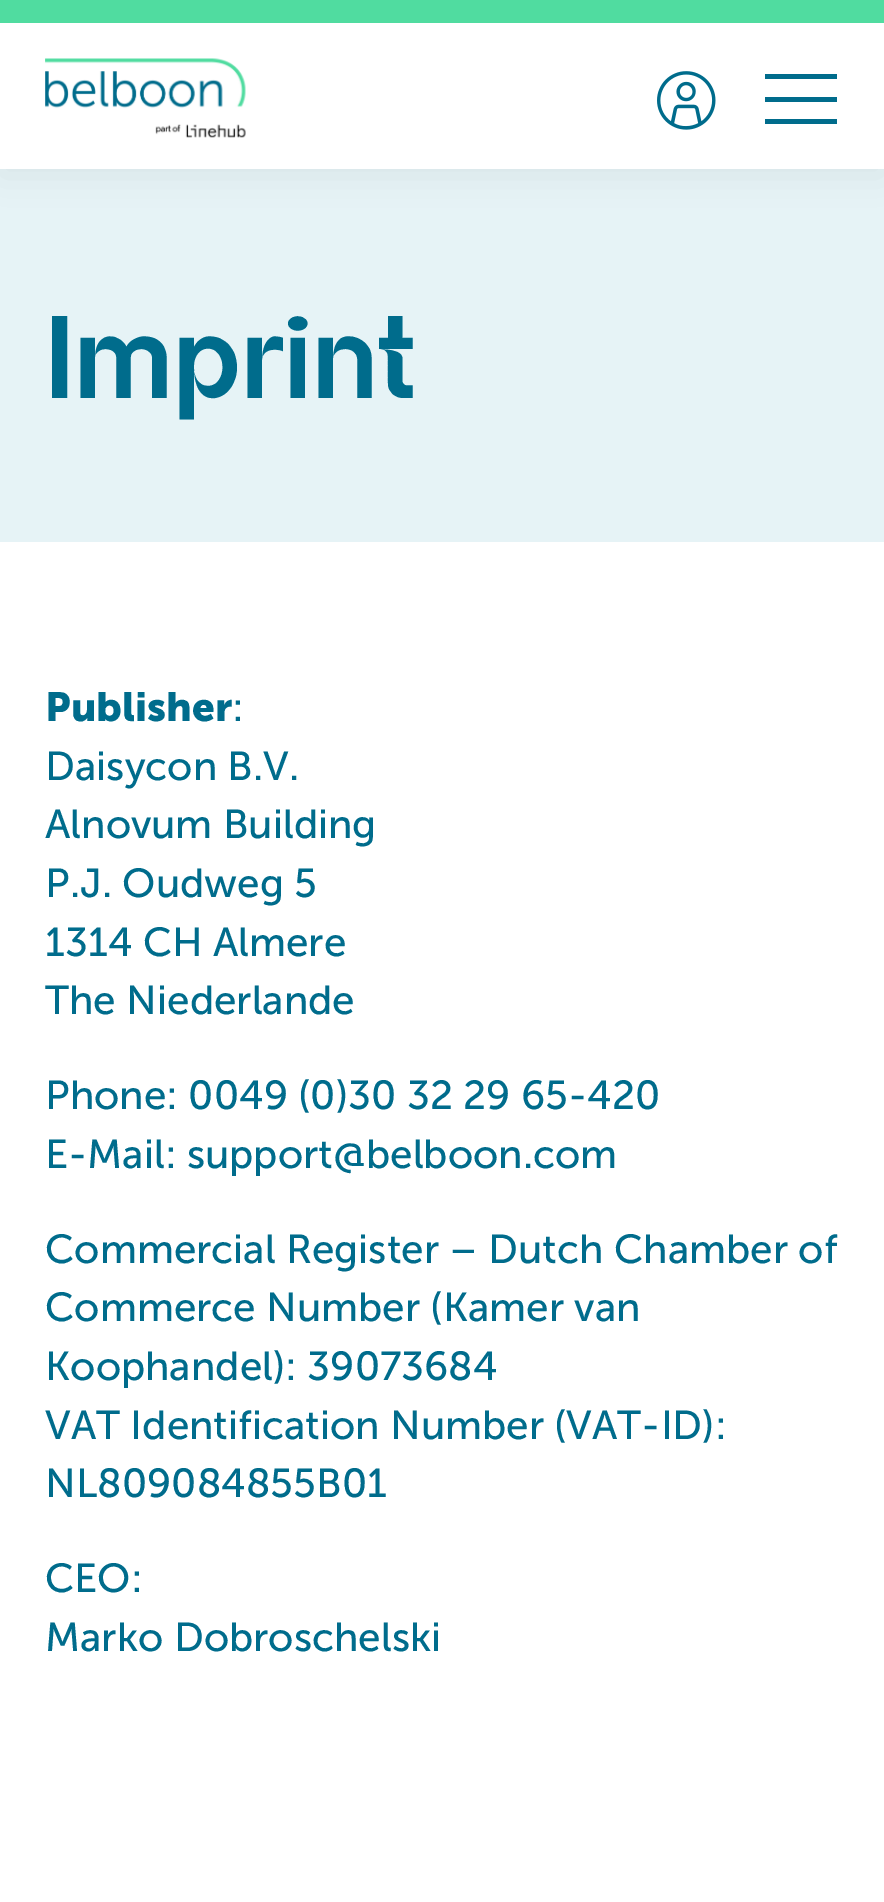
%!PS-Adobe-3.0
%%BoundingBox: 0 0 884 1902
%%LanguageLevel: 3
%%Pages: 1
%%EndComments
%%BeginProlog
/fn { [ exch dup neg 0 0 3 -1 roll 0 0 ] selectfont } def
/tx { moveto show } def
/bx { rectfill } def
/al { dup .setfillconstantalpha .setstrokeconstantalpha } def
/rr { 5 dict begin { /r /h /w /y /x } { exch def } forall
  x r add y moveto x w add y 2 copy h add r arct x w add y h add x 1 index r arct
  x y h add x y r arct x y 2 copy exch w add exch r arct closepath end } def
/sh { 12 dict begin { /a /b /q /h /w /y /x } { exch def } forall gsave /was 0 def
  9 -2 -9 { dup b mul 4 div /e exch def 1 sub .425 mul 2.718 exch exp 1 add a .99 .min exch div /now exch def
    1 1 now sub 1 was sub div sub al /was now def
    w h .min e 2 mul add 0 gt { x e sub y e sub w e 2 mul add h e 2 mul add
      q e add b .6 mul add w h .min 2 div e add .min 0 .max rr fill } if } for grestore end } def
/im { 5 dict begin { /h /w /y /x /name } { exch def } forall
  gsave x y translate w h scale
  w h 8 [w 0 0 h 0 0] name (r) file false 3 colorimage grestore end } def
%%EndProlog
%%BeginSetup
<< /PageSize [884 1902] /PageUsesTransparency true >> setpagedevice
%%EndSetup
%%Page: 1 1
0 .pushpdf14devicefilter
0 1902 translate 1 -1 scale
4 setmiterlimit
1 setgray
0 0 884 1902 bx
0.902 0.953 0.965 setrgbcolor
0 169 884 373 bx
0 setgray
0 7 884 169 0 18 0.05 sh
1 setgray
0 23 884 146 bx
0.314 0.863 0.627 setrgbcolor
0 0 884 23 bx
(image0.raw) 45 58 201 80 im
(image1.raw) 657 71 59 59 im
0 0.424 0.549 setrgbcolor
765 97 72 5 bx
765 74 72 5 bx
765 119 72 5 bx
/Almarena-Bold 117 fn
(Imprint) 45 398 tx
/MuseoSans-Bold 40.5 fn
(Publisher) 45 721 tx
/MuseoSans-Regular 40.5 fn
(:) 232 721 tx
(Daisycon B.V.) 45 780 tx
(Alnovum Building) 45 838 tx
(P.J. Oudweg 5) 45 897 tx
(1314 CH Almere) 45 956 tx
(The Niederlande) 45 1014 tx
(Phone: 0049 \(0\)30 32 29 65-420) 45 1109 tx
(E-Mail: support@belboon.com) 45 1168 tx
(Commercial Register – Dutch Chamber of) 45 1263 tx
(Commerce Number \(Kamer van) 45 1321 tx
(Koophandel\): 39073684) 45 1380 tx
(VAT Identification Number \(VAT-ID\):) 45 1439 tx
(NL809084855B01) 45 1497 tx
(CEO:) 45 1592 tx
(Marko Dobroschelski) 45 1651 tx
.poppdf14devicefilter showpage
%%EOF
